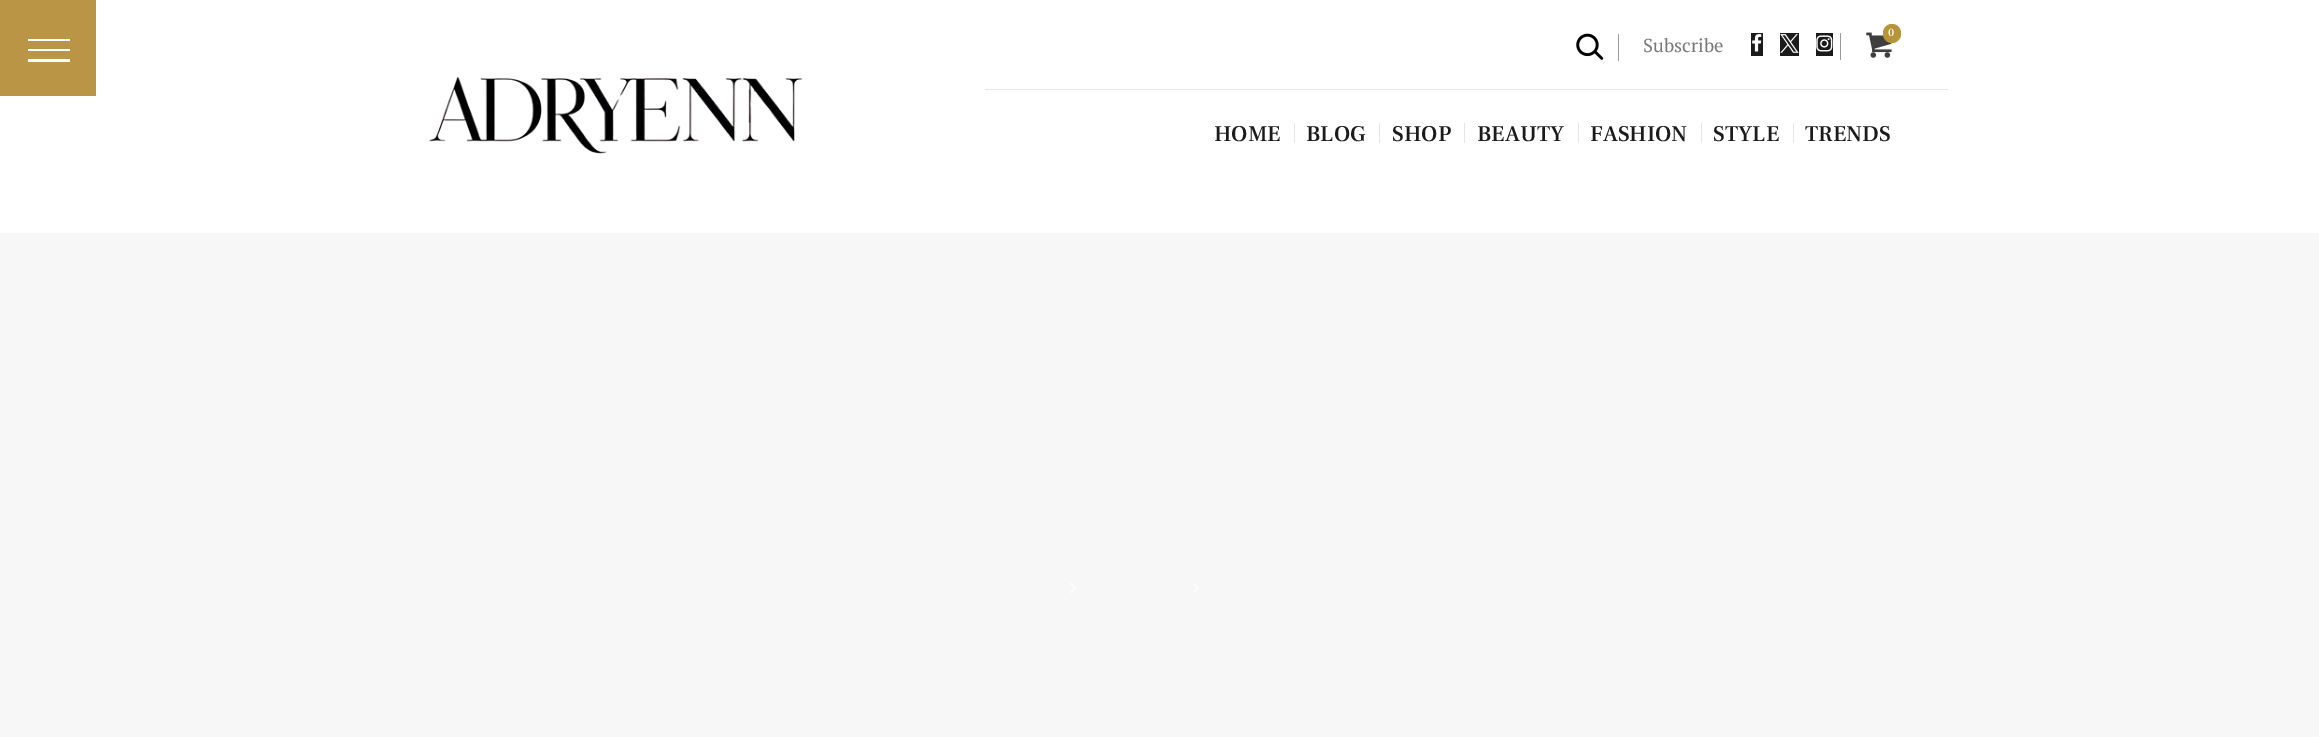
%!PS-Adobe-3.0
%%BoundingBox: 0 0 2319 737
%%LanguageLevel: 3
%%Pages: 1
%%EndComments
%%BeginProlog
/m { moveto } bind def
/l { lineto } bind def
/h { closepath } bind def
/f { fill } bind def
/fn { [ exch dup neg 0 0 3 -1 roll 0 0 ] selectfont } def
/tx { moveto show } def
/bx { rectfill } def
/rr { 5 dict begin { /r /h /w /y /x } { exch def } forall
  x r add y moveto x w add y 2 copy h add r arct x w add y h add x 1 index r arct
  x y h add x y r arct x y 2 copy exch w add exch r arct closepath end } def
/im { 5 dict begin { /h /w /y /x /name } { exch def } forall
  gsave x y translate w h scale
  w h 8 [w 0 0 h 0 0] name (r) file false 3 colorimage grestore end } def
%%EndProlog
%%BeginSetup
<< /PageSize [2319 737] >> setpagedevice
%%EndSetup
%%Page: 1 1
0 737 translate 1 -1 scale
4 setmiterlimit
1 setgray
0 0 2319 737 bx
0.729 0.584 0.271 setrgbcolor
0 0 96 96 bx
1 setgray
70 39 m 70 41 l 28 41 l 28 39 l h 28 51 m 70 51 l 70 49 l 28 49 l h 28 62 m 70 62 l 70 59 l 28 59 l h f
(image0.raw) 429 77 374 77 im
(image1.raw) 1576 33 28 27 im
0.608 setgray
1618 34 1 27 bx
/PTSerif-Regular 18.75 fn
0.478 setgray
(Subscribe) 1643 52 tx
0.106 setgray
1751 33 12 23 bx
(image2.raw) 1752 34 10 18 im
1780 33 19 23 bx
(image3.raw) 1780 34 19 19 im
1816 33 17 23 bx
(image4.raw) 1816 35 17 17 im
0.608 setgray
1840 33 1 27 bx
(image5.raw) 1866 32 26 26 im
0.714 0.584 0.227 setrgbcolor
1883 24 18 19 9 rr f
/FrankRuhlLibre-Medium 11 fn
1 setgray
(0) 1888 36 tx
0.91 setgray
985 89 963 1 bx
/FrankRuhlLibre-Medium 22.5 fn
0.106 setgray
(HOME) 1214 141 tx
0.898 setgray
1294 123 1 20 bx
0.106 setgray
(BLOG) 1306 141 tx
0.898 setgray
1379 123 1 20 bx
0.106 setgray
(SHOP) 1392 141 tx
0.898 setgray
1464 123 1 20 bx
0.106 setgray
(BEAUTY) 1477 141 tx
0.898 setgray
1578 123 1 20 bx
0.106 setgray
(FASHION) 1590 141 tx
0.898 setgray
1701 123 1 20 bx
0.106 setgray
(STYLE) 1713 141 tx
0.898 setgray
1793 123 1 20 bx
0.106 setgray
(TRENDS) 1805 141 tx
0.969 setgray
0 233 2319 504 bx
(image6.raw) 1070 583 6 10 im
(image7.raw) 1193 583 5 10 im
showpage
%%EOF
